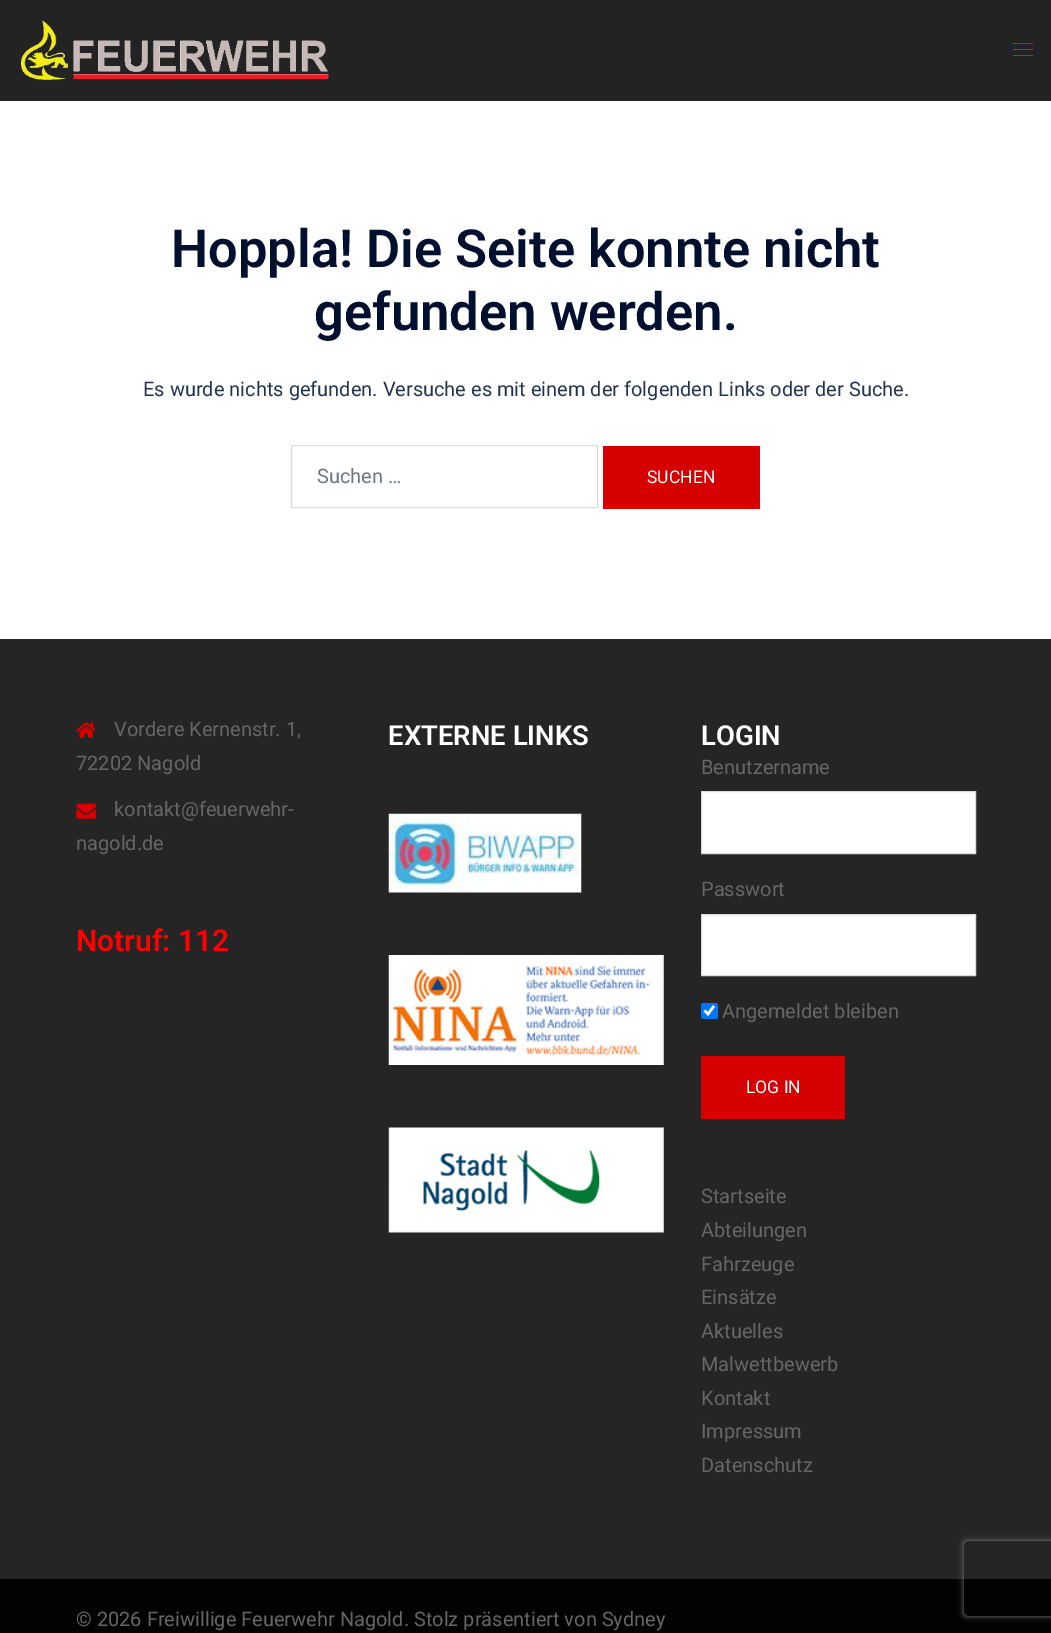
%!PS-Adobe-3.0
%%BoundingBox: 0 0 1051 1633
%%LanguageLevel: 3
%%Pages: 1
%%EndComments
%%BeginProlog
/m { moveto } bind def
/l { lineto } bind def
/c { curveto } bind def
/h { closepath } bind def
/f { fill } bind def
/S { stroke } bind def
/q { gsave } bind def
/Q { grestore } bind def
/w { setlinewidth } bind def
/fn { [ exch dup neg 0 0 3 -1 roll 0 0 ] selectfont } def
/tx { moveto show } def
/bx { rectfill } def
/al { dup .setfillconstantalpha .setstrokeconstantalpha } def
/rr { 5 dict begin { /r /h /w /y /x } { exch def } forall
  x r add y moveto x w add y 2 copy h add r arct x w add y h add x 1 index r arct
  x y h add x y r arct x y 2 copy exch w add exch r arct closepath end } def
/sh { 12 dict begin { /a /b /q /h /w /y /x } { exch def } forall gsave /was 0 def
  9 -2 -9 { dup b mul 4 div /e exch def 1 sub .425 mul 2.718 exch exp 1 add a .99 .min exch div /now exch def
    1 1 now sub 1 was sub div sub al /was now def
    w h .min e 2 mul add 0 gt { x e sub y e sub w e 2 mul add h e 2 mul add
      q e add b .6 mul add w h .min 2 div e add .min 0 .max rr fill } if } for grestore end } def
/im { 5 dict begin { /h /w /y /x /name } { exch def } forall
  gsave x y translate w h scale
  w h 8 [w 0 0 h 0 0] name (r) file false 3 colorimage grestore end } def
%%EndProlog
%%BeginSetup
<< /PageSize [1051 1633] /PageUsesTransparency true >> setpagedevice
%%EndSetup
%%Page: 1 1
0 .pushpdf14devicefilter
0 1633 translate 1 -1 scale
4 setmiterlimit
1 setgray
0 0 1051 1633 bx
0.137 setgray
0 0 1051 101 bx
(image0.raw) 21 20 308 60 im
1 0.039 0.008 setrgbcolor
1013 43 20 1 bx
1013 49 20 1 bx
1013 55 20 1 bx
/Roboto-SemiBold 52.5 fn
0 0.063 0.18 setrgbcolor
(Hoppla! Die Seite konnte nicht) 171 267 tx
(gefunden werden.) 314 330 tx
/Roboto-Regular 20 fn
0.137 0.204 0.322 setrgbcolor
(Es wurde nichts gefunden. Versuche es mit einem der folgenden Links oder der Suche.) 143 396 tx
0.859 setgray
291.5 445.5 306 62 rectstroke
0.427 0.463 0.522 setrgbcolor
(Suchen …) 317 483 tx
0.839 0 0 setrgbcolor
603 446 157 63 bx
/Roboto-Regular 17.5 fn
1 setgray
(SUCHEN) 647 483 tx
0.145 setgray
0 639 1051 940 bx
(image1.raw) 76 722 19 16 im
/Roboto-Regular 20 fn
0.4 setgray
(Vordere Kernenstr. 1,) 114 736 tx
(72202 Nagold) 76 770 tx
(image2.raw) 76 803 20 16 im
(kontakt@feuerwehr-) 114 816 tx
(nagold.de) 76 850 tx
/Roboto-SemiBold 30 fn
1 0 0 setrgbcolor
(Notruf: 112) 76 951 tx
/Roboto-SemiBold 27.5 fn
1 setgray
(EXTERNE LINKS) 388 745 tx
(image3.raw) 388 813 194 80 im
(image4.raw) 388 955 276 110 im
(image5.raw) 388 1127 276 106 im
(LOGIN) 701 745 tx
/Roboto-Regular 20 fn
0.4 setgray
(Benutzername) 701 774 tx
1 setgray
701.5 791.5 m 975.5 791.5 l 975.5 853.5 l 701.5 853.5 l h q f Q
0.859 setgray
S
0.4 setgray
(Passwort) 701 896 tx
1 setgray
701.5 914.5 m 975.5 914.5 l 975.5 975.5 l 701.5 975.5 l h q f Q
0.859 setgray
S
0 0.459 1 setrgbcolor
701 1003 17 16 2.5 rr f
1 setgray
2.6 w
704.5 1010.5 m 708 1014 l 714 1006 l S
0.4 setgray
(Angemeldet bleiben) 722 1018 tx
0.839 0 0 setrgbcolor
701 1056 144 63 bx
/Roboto-Regular 17.5 fn
1 setgray
(LOG IN) 746 1093 tx
/Roboto-Regular 20 fn
0.4 setgray
(Startseite) 701 1203 tx
(Abteilungen) 701 1237 tx
(Fahrzeuge) 701 1271 tx
(Einsätze) 701 1304 tx
(Aktuelles) 701 1338 tx
(Malwettbewerb) 701 1371 tx
(Kontakt) 701 1405 tx
(Impressum) 701 1438 tx
(Datenschutz) 701 1472 tx
0.008 setgray
0 1579 1051 54 bx
0.4 setgray
(© 2026 Freiwillige Feuerwehr Nagold. Stolz präsentiert von Sydney) 76 1626 tx
q
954 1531 m 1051 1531 l 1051 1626 l 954 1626 l h 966.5 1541 m 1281.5 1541 l 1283 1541 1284 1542 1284 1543.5 c 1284 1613.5 l 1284 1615 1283 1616 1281.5 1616 c 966.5 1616 l 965 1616 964 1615 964 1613.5 c 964 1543.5 l 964 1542 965 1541 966.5 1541 c h eoclip newpath
0.502 setgray
964 1541 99 75 2.5 3 1 sh
Q
.poppdf14devicefilter showpage
%%EOF
